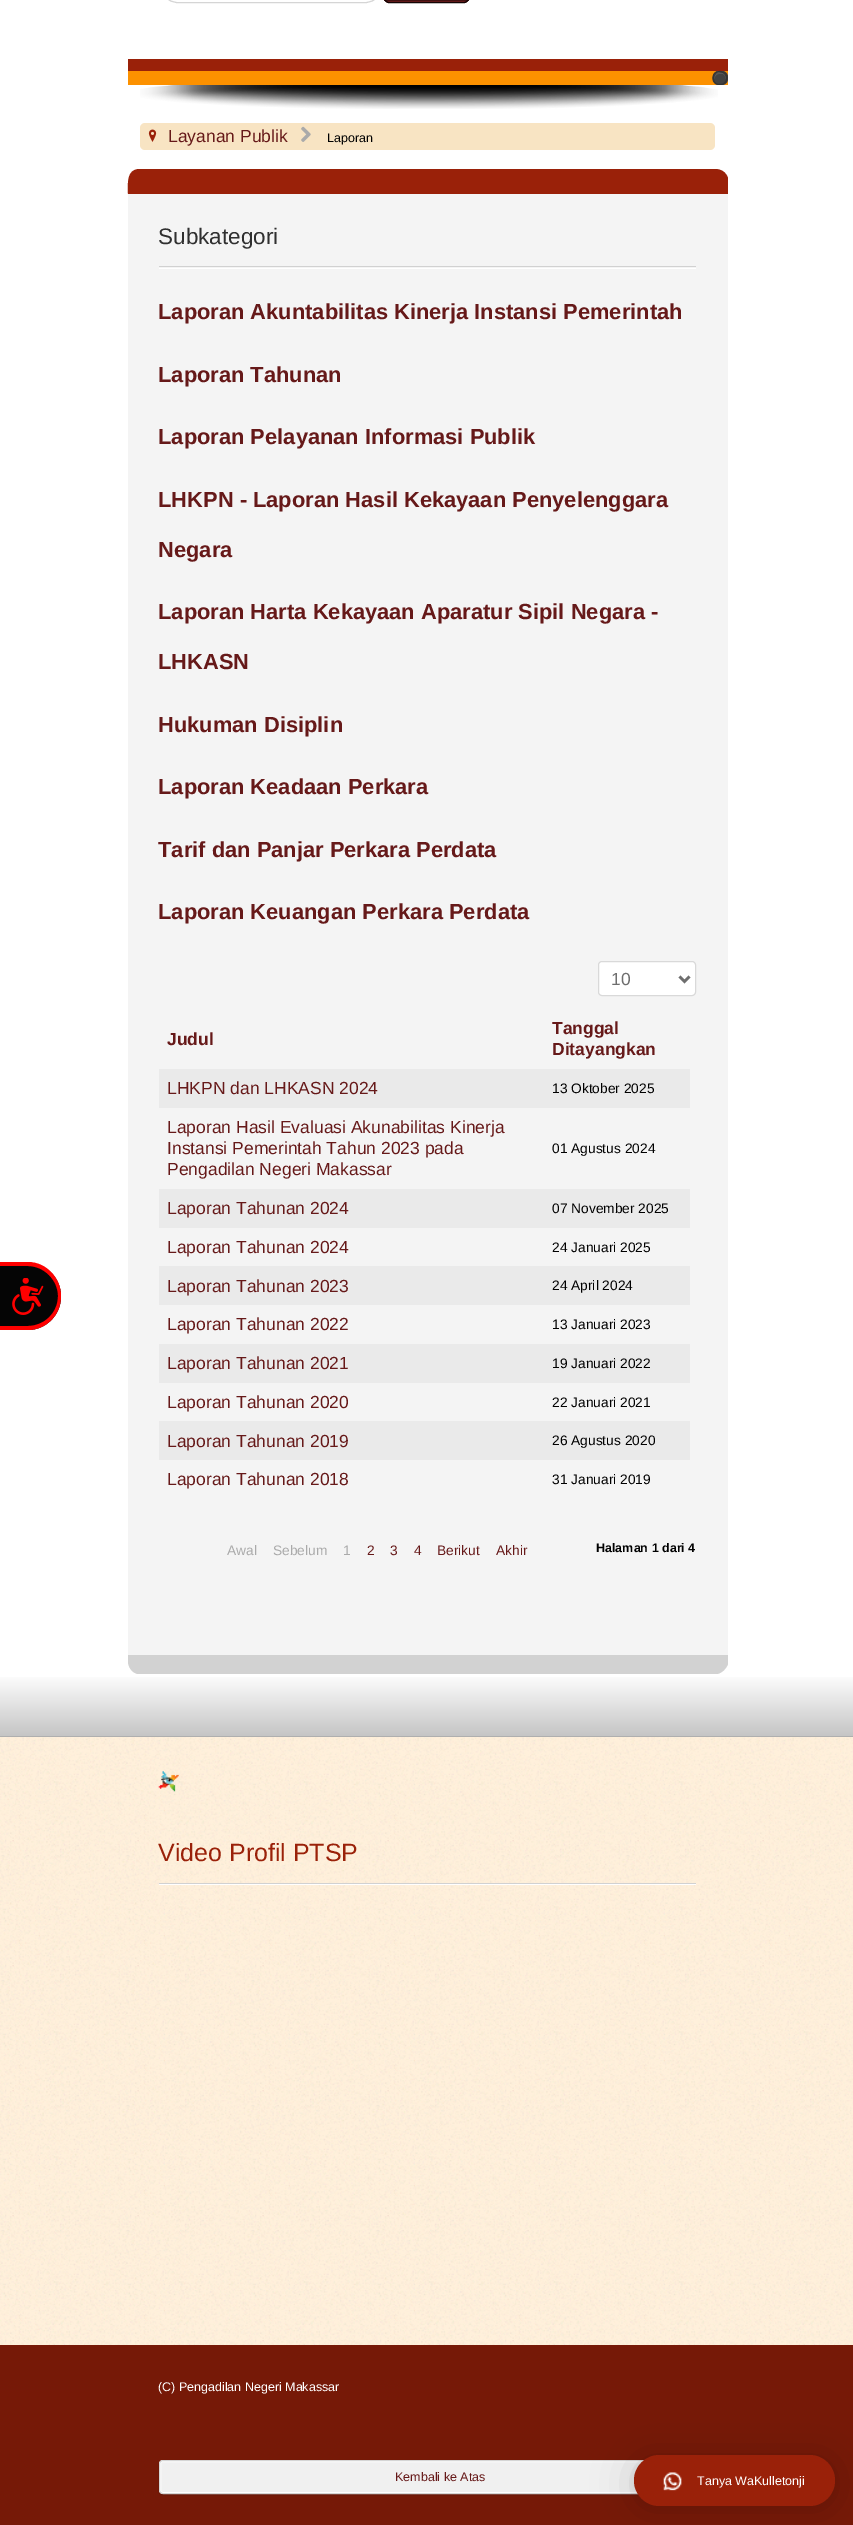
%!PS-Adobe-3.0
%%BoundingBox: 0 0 853 2525
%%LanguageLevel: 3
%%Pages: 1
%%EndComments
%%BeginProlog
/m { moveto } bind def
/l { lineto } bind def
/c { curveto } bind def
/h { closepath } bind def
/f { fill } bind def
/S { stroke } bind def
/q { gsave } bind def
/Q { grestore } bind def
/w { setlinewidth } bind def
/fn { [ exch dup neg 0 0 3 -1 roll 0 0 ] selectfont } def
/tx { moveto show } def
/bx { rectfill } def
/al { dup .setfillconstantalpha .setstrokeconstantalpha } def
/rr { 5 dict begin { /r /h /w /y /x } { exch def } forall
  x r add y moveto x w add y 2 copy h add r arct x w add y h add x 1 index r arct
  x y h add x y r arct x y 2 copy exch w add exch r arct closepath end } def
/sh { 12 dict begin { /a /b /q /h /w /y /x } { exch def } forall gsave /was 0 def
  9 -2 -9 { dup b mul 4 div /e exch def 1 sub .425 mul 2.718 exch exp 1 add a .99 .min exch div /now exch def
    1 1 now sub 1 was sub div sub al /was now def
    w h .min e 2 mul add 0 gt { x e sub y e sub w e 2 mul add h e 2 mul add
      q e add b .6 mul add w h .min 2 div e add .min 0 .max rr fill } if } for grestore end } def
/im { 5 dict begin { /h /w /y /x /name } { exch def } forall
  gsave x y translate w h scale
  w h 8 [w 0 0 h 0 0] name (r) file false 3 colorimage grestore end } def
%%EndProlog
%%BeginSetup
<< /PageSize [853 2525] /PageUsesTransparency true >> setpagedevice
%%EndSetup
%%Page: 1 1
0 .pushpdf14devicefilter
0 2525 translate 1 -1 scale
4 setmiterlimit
1 setgray
0 0 853 2525 bx
0.835 setgray
159.5 -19.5 224 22 18.5 rr S
0.38 0.094 0.094 setrgbcolor
384 -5 85 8 5 rr f
q 384 0 m 469 0 l 469 1 l 384 1 l h clip newpath
<< /ShadingType 2 /ColorSpace /DeviceRGB /Coords [426 -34 426 1.3] /Extend [true true] /Function << /FunctionType 2 /Domain [0 1] /C0 [0.463 0.114 0.114] /C1 [0.255 0.063 0.063] /N 1 >> >> shfill Q
0.078 0.02 0.02 setrgbcolor
384.5 -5.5 84 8 4.5 rr S
0.988 0.569 0 setrgbcolor
128 71 600 14 bx
0.604 0.129 0.035 setrgbcolor
128 59 600 12 bx
0.259 setgray
713 71 15 14 6 rr f
0.345 setgray
719 74 m 723 74 l 725 75 726 77.5 726 79.5 c 726.5 76.5 725.5 72 722.5 71.5 c 719.5 71 l 715 71 713.5 75 714 79 c 714.5 76.5 716.5 74 719 74 c h f
0.204 setgray
719 72 m 723 73 l 725.5 74.5 726.5 77 726 79.5 c 728 69 714 68 714 77.5 c 714.5 74.5 716.5 72 719 72 c h f
719 71 m 720.5 71 722 71 723.5 71.5 c 730 74.5 728.5 84.5 721 85 c 719.5 85 718 85 716.5 84.5 c 710 82 711.5 71 719 71 c h 719 71 m 720 71 722 71 723 71.5 c 728 74.5 727 83.5 721 84 c 720 84 718 84 717 83.5 c 712 81.5 713 71 719 71 c h eofill
0.02 setgray
0 1263 m 27.5 1263 l 46 1263 61 1278 61 1296.5 c 61 1315 46 1330 27.5 1330 c 0 1330 l h f
1 0 0 setrgbcolor
0 1262 m 28 1262 l 46 1262 61 1278 61 1296 c 61 1315 46 1330 28 1330 c 0 1330 l h 0 1266 m 28 1266 l 44 1266 58 1280 58 1296 c 58 1313 44 1326 28 1326 c 0 1326 l h eofill
(image0.raw) 12 1278 32 37 im
(image1.raw) 140 85 578 24 im
0.973 0.894 0.765 setrgbcolor
140 123 575 27 5 rr f
(image2.raw) 148 129 9 13 im
/LiberationSans-Regular 17.5 fn
0.4 0.098 0.098 setrgbcolor
(Layanan Publik) 168 142 tx
(image3.raw) 301 126 10 16 im
/LiberationSans-Regular 12.5 fn
0 setgray
(Laporan) 327 142 tx
0.957 setgray
128 169 600 1505 13 rr f
0.604 0.129 0.035 setrgbcolor
140 169 m 715 169 l 721 169 726 172 728 178 c 728 194 l 128 194 l 128 184 126 169 140 169 c h f
0.824 setgray
728 1655 m 728 1664 l 726 1669 722 1673 717 1674 c 138 1674 l 132 1673 128 1667 128 1661 c 128 1655 l h f
1 setgray
159 268 537 1 bx
0.82 setgray
159 266 537 1 bx
/LiberationSans-Regular 22.5 fn
0.188 setgray
(Subkategori) 158 244 tx
/LiberationSans-Bold 21.9 fn
0.4 0.098 0.098 setrgbcolor
(Laporan Akuntabilitas Kinerja Instansi Pemerintah) 158 319 tx
(Laporan Tahunan) 158 382 tx
(Laporan Pelayanan Informasi Publik) 158 444 tx
(LHKPN - Laporan Hasil Kekayaan Penyelenggara) 158 507 tx
(Negara) 158 557 tx
(Laporan Harta Kekayaan Aparatur Sipil Negara -) 158 619 tx
(LHKASN) 158 669 tx
(Hukuman Disiplin) 158 732 tx
(Laporan Keadaan Perkara) 158 794 tx
(Tarif dan Panjar Perkara Perdata) 158 857 tx
(Laporan Keuangan Perkara Perdata) 158 919 tx
1 setgray
598.5 961.5 97 34 3.5 rr q f Q
0.851 setgray
S
0.431 setgray
2.5 w
679.5 976.5 m 684.5 981.5 l 689.5 976.5 l S
/LiberationSans-Regular 17.5 fn
(10) 611 985 tx
/LiberationSans-Bold 17.5 fn
0.4 0.098 0.098 setrgbcolor
(Judul) 167 1045 tx
(Tanggal) 552 1034 tx
(Ditayangkan) 552 1055 tx
0.918 setgray
159 1069 531 39 bx
/LiberationSans-Regular 17.5 fn
0.4 0.098 0.098 setrgbcolor
(LHKPN dan LHKASN 2024) 167 1094 tx
/LiberationSans-Regular 13.75 fn
0 setgray
(13 Oktober 2025) 552 1093 tx
/LiberationSans-Regular 17.5 fn
0.4 0.098 0.098 setrgbcolor
(Laporan Hasil Evaluasi Akunabilitas Kinerja) 167 1133 tx
(Instansi Pemerintah Tahun 2023 pada) 167 1154 tx
(Pengadilan Negeri Makassar) 167 1175 tx
/LiberationSans-Regular 13.75 fn
0 setgray
(01 Agustus 2024) 552 1153 tx
0.918 setgray
159 1189 531 39 bx
/LiberationSans-Regular 17.5 fn
0.4 0.098 0.098 setrgbcolor
(Laporan Tahunan 2024) 167 1214 tx
/LiberationSans-Regular 13.75 fn
0 setgray
(07 November 2025) 552 1213 tx
/LiberationSans-Regular 17.5 fn
0.4 0.098 0.098 setrgbcolor
(Laporan Tahunan 2024) 167 1253 tx
/LiberationSans-Regular 13.75 fn
0 setgray
(24 Januari 2025) 552 1252 tx
0.918 setgray
159 1266 531 39 bx
/LiberationSans-Regular 17.5 fn
0.4 0.098 0.098 setrgbcolor
(Laporan Tahunan 2023) 167 1292 tx
/LiberationSans-Regular 13.75 fn
0 setgray
(24 April 2024) 552 1290 tx
/LiberationSans-Regular 17.5 fn
0.4 0.098 0.098 setrgbcolor
(Laporan Tahunan 2022) 167 1330 tx
/LiberationSans-Regular 13.75 fn
0 setgray
(13 Januari 2023) 552 1329 tx
0.918 setgray
159 1344 531 39 bx
/LiberationSans-Regular 17.5 fn
0.4 0.098 0.098 setrgbcolor
(Laporan Tahunan 2021) 167 1369 tx
/LiberationSans-Regular 13.75 fn
0 setgray
(19 Januari 2022) 552 1368 tx
/LiberationSans-Regular 17.5 fn
0.4 0.098 0.098 setrgbcolor
(Laporan Tahunan 2020) 167 1408 tx
/LiberationSans-Regular 13.75 fn
0 setgray
(22 Januari 2021) 552 1407 tx
0.918 setgray
159 1421 531 39 bx
/LiberationSans-Regular 17.5 fn
0.4 0.098 0.098 setrgbcolor
(Laporan Tahunan 2019) 167 1447 tx
/LiberationSans-Regular 13.75 fn
0 setgray
(26 Agustus 2020) 552 1445 tx
/LiberationSans-Regular 17.5 fn
0.4 0.098 0.098 setrgbcolor
(Laporan Tahunan 2018) 167 1485 tx
/LiberationSans-Regular 13.75 fn
0 setgray
(31 Januari 2019) 552 1484 tx
0.667 setgray
(Awal) 227 1555 tx
(Sebelum) 273 1555 tx
(1) 343 1555 tx
0.4 0.098 0.098 setrgbcolor
(2) 367 1555 tx
(3) 390 1555 tx
(4) 414 1555 tx
(Berikut) 437 1555 tx
(Akhir) 496 1555 tx
/LiberationSans-Bold 12.5 fn
0 setgray
(Halaman 1 dari 4) 596 1552 tx
1 0.941 0.859 setrgbcolor
0 1737 853 608 bx
(image4.raw) 0 1737 853 608 im
0.686 setgray
0 1736 853 1 bx
(image5.raw) 158 1771 21 21 im
1 setgray
159 1884 537 1 bx
0.82 setgray
159 1883 537 1 bx
/LiberationSans-Regular 25 fn
0.604 0.129 0.035 setrgbcolor
(Video Profil PTSP) 158 1861 tx
0.463 0.098 0.027 setrgbcolor
0 2345 853 180 bx
/LiberationSans-Regular 12.5 fn
1 setgray
(\(C\) Pengadilan Negeri Makassar) 158 2391 tx
0 setgray
159 2461 565 34 4 1 0.2 sh
0.941 setgray
159 2460 565 34 4 rr f
1 setgray
1 w
160.5 2461.5 562 31 2 rr S
0.835 setgray
159.5 2460.5 564 33 3.5 rr S
0.4 0.098 0.098 setrgbcolor
(Kembali ke Atas) 395 2481 tx
q 0 1677 m 853 1677 l 853 1736 l 0 1736 l h clip newpath
<< /ShadingType 2 /ColorSpace /DeviceRGB /Coords [427 1674 427 1736] /Extend [true true] /Function << /FunctionType 2 /Domain [0 1] /C0 [1 1 1] /C1 [0.773 0.773 0.773] /N 1 >> >> shfill Q
0 setgray
634 2458 201 51 25.5 20 0.16 sh
634 2456 201 52 26 4 0.06 sh
0.604 0.129 0.035 setrgbcolor
634 2455 201 51 25.5 rr f
(image6.raw) 663 2472 19 19 im
1 setgray
(Tanya WaKulletonji) 697 2485 tx
.poppdf14devicefilter showpage
%%EOF
